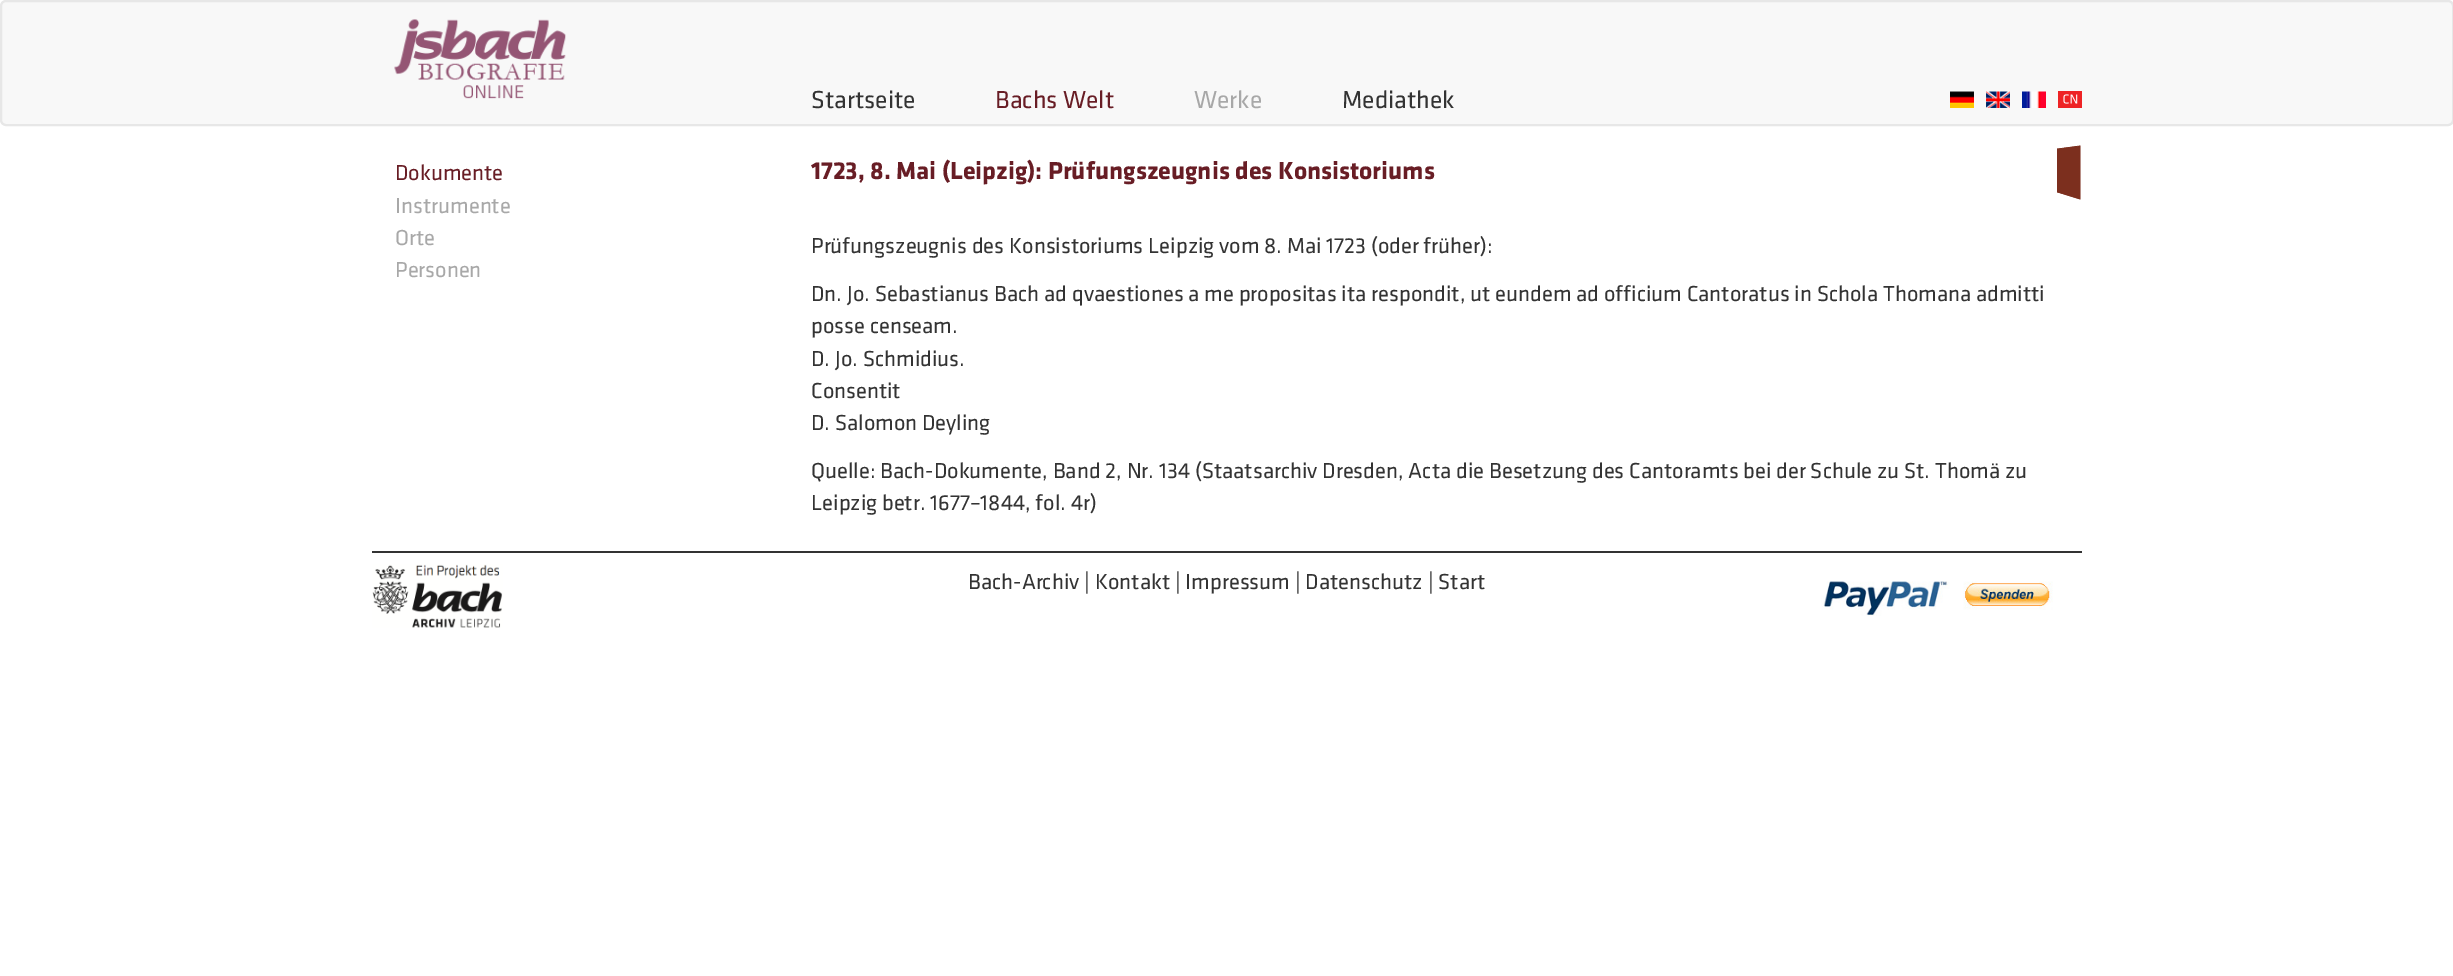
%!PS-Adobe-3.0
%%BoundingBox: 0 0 2453 976
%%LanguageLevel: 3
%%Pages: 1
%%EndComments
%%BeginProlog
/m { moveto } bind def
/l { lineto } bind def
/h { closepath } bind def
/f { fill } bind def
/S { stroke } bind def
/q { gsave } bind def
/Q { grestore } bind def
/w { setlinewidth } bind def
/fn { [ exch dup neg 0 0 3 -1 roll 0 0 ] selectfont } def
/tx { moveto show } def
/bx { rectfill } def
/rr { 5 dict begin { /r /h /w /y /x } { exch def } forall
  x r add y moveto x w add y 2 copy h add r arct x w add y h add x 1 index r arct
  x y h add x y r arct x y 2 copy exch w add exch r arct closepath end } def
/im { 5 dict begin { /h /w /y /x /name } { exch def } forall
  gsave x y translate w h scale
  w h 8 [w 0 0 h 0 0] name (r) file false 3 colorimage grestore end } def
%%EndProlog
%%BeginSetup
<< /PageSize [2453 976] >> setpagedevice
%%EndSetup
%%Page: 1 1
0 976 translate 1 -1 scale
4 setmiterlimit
1 setgray
0 0 2453 976 bx
0.973 setgray
1 1 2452 124 5 rr q f Q
0.906 setgray
2 w
S
(image0.raw) 394 19 172 80 im
/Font-Regular 25.5 fn
0.2 setgray
(Startseite) 811 108 tx
0.408 0.114 0.145 setrgbcolor
(Bachs Welt) 995 108 tx
0.659 setgray
(Werke) 1194 108 tx
0.2 setgray
(Mediathek) 1342 108 tx
(image1.raw) 1950 91 24 17 im
(image2.raw) 1986 91 24 17 im
(image3.raw) 2022 91 24 17 im
0.933 0.137 0.145 setrgbcolor
2058 91 24 17 bx
(image4.raw) 2063 94 15 10 im
/Font-Regular 22.5 fn
0.408 0.114 0.145 setrgbcolor
(Dokumente) 395 180 tx
0.659 setgray
(Instrumente) 395 213 tx
(Orte) 395 245 tx
(Personen) 395 277 tx
/Font-Bold 25.5 fn
0.408 0.114 0.145 setrgbcolor
(1723, 8. Mai \(Leipzig\): Prüfungszeugnis des Konsistoriums) 811 179 tx
0.486 0.184 0.118 setrgbcolor
2080 146 m 2057 149 l 2057 192 l 2080 199 l h f
0.7 w
2080 146 m 2057.5 149 l 2057.5 192 l 2080 199 l h S
/Font-Regular 22.5 fn
0.2 setgray
(Prüfungszeugnis des Konsistoriums Leipzig vom 8. Mai 1723 \(oder früher\):) 811 253 tx
(Dn. Jo. Sebastianus Bach ad qvaestiones a me propositas ita respondit, ut eundem ad officium Cantoratus in Schola Thomana admitti) 811 301 tx
(posse censeam.) 811 333 tx
(D. Jo. Schmidius.) 811 366 tx
(Consentit) 811 398 tx
(D. Salomon Deyling) 811 430 tx
(Quelle: Bach-Dokumente, Band 2, Nr. 134 \(Staatsarchiv Dresden, Acta die Besetzung des Cantoramts bei der Schule zu St. Thomä zu) 811 478 tx
(Leipzig betr. 1677–1844, fol. 4r\)) 811 510 tx
372 551 1710 2 bx
(image5.raw) 372 564 131 64 im
(Bach-Archiv | Kontakt | Impressum | Datenschutz | Start) 968 589 tx
(image6.raw) 1821 581 232 35 im
showpage
%%EOF
